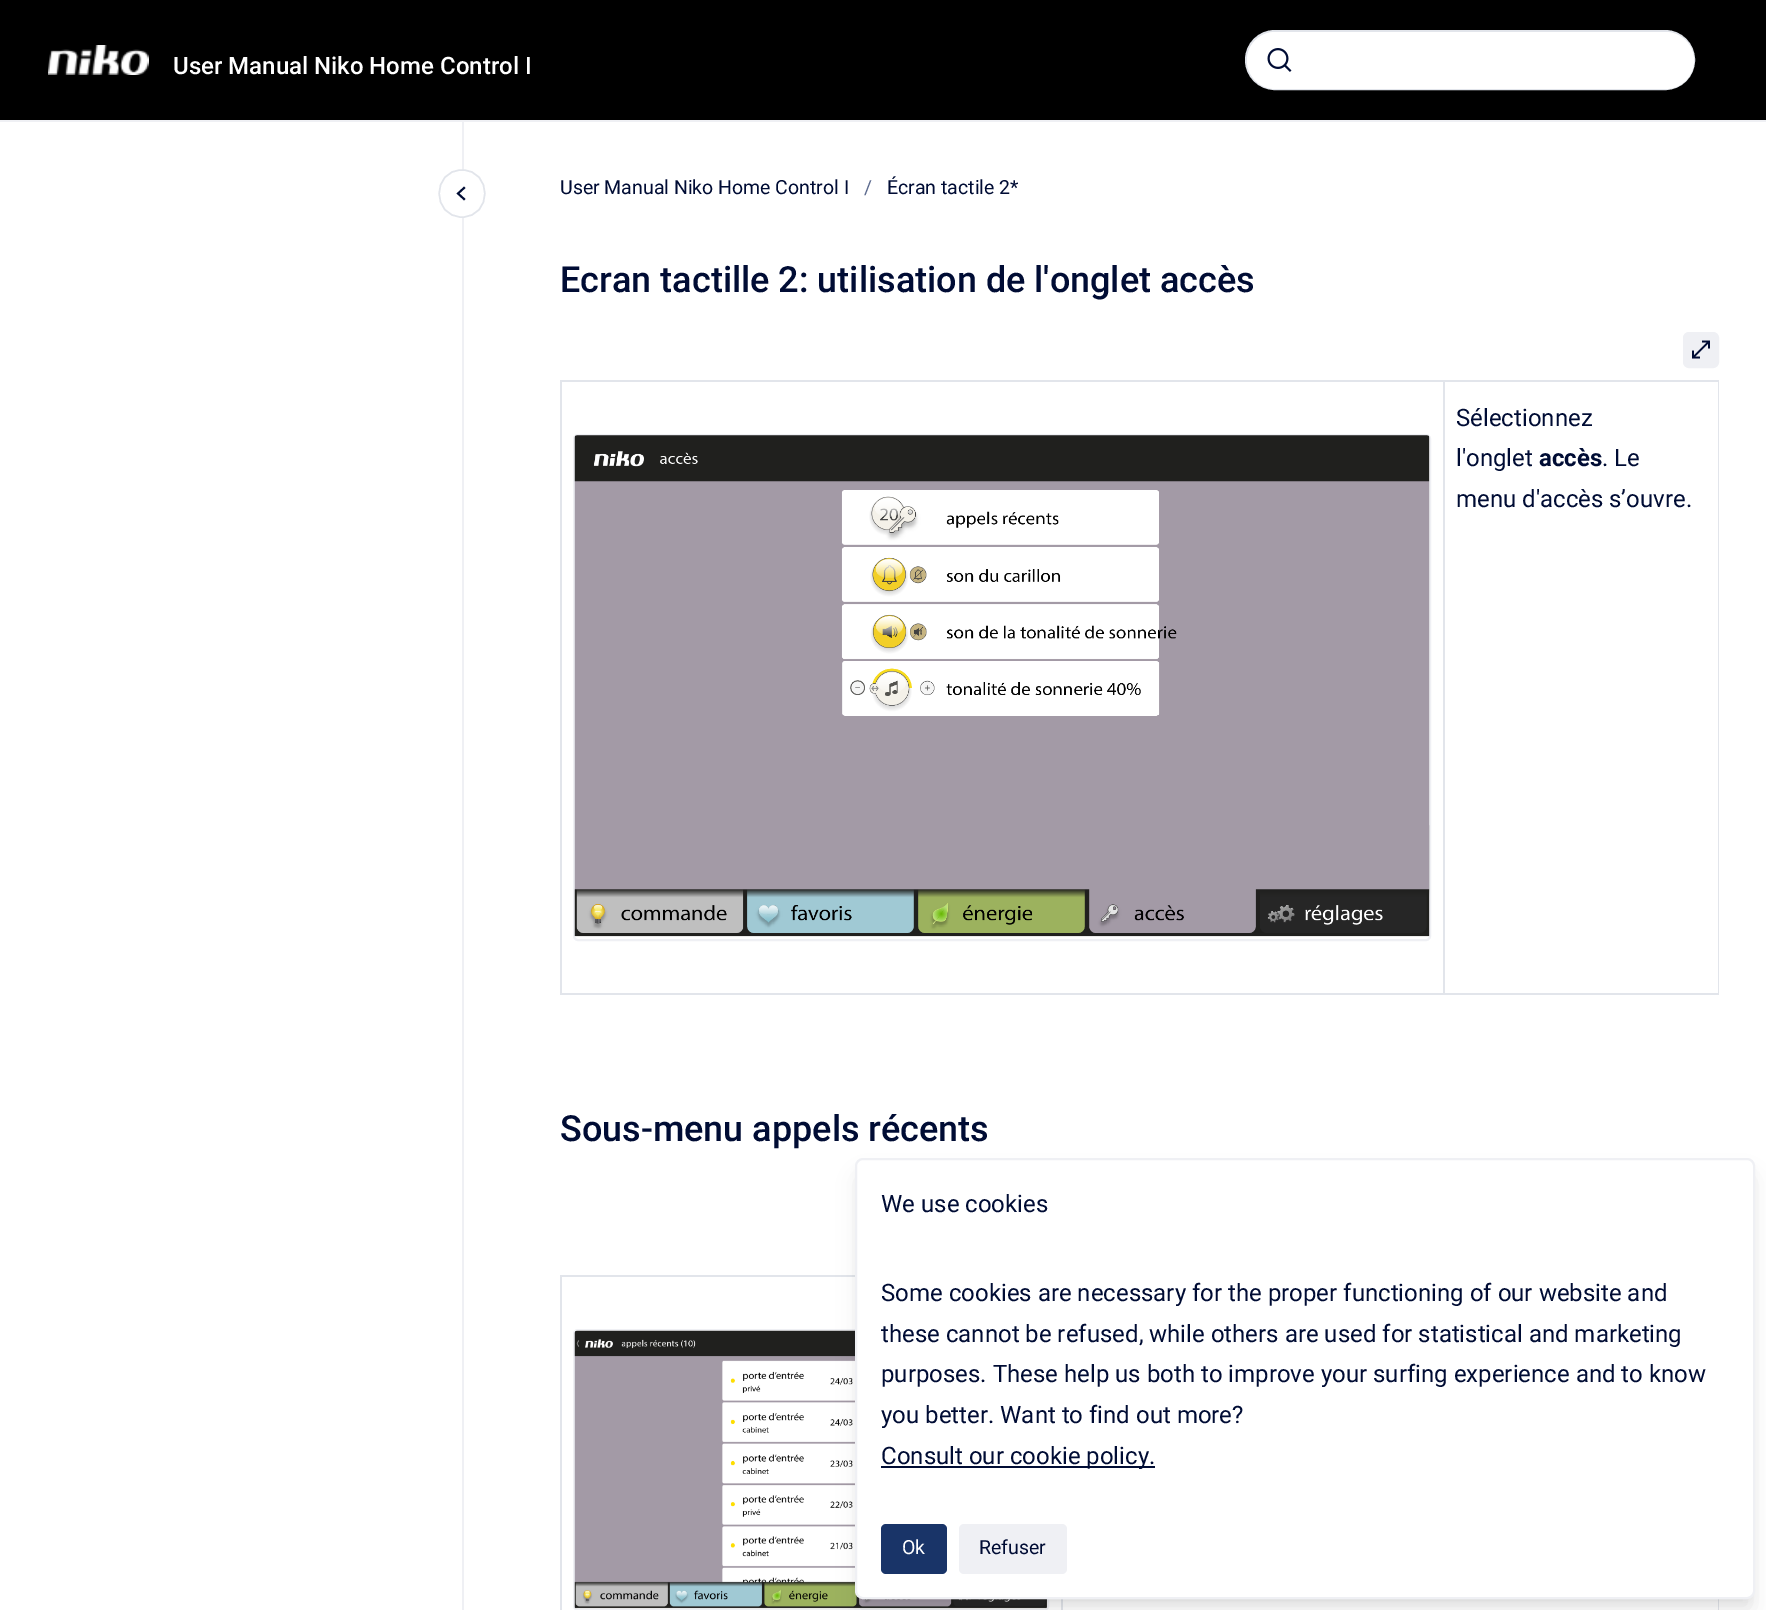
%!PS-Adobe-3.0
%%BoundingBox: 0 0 1766 1610
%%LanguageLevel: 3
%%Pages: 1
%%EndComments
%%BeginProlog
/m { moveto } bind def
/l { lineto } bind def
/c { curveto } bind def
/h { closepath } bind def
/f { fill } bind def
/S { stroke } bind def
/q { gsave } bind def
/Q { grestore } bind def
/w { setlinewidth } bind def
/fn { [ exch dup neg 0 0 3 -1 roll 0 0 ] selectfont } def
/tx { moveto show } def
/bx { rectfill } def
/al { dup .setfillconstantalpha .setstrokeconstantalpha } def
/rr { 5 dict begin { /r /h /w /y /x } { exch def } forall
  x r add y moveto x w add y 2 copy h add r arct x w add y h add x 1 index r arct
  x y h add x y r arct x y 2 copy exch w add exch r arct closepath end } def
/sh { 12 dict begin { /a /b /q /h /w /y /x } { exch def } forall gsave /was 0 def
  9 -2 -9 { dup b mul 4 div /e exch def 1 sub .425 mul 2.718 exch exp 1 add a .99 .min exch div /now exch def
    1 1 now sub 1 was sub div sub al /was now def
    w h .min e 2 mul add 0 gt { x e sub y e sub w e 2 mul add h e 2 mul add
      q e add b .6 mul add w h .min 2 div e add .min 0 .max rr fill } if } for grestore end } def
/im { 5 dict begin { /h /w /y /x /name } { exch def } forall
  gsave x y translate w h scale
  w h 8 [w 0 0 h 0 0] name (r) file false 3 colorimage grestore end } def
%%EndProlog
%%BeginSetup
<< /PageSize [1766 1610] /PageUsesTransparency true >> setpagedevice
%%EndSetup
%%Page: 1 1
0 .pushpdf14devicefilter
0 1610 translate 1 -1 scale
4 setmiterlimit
1 setgray
0 0 1766 1610 bx
0 setgray
0 0 1766 120 bx
0.937 0.941 0.957 setrgbcolor
0 120 1766 2 bx
(image0.raw) 48 45 101 30 im
/Roboto-Medium 24 fn
1 setgray
(User Manual Niko Home Control I) 173 74 tx
1246 31 448 58 29 rr q f Q
0.886 0.898 0.922 setrgbcolor
2 w
S
1 setgray
1247 32 447 57 28.5 rr f
(image1.raw) 1267 48 25 24 im
0.937 0.941 0.957 setrgbcolor
462 122 2 1488 bx
1 setgray
462 218 m 430 218 430 170 462 170 c 494 170 494 218 462 218 c h f
0.886 0.898 0.922 setrgbcolor
1.5 w
462 217 m 431.5 217 431.5 170 462 170 c 492.5 170 492.5 217 462 217 c h S
0 0.047 0.204 setrgbcolor
1.9 w
2 setlinecap
464 199 m 458 193.5 l 464 188 l S
/Roboto-Regular 19.5 fn
(User Manual Niko Home Control I) 560 194 tx
0.365 0.42 0.561 setrgbcolor
(/) 864 194 tx
0 0.047 0.204 setrgbcolor
(Écran tactile 2*) 887 194 tx
/Roboto-Medium 36 fn
(Ecran tactille 2: utilisation de l'onglet accès) 560 292 tx
0.937 0.941 0.957 setrgbcolor
1684 333 34 34 5 rr q f Q
2 w
0 setlinecap
S
(image2.raw) 1692 340 18 19 im
0.886 0.898 0.922 setrgbcolor
560 380 1159 2 bx
1718 380 1 615 bx
560 993 1159 2 bx
560 380 2 615 bx
0.937 0.941 0.957 setrgbcolor
574 435 856 505 4 rr S
(image3.raw) 574 435 856 502 im
0.886 0.898 0.922 setrgbcolor
1443 380 2 615 bx
/Roboto-Regular 24 fn
0 0.047 0.204 setrgbcolor
(Sélectionnez) 1456 426 tx
(l'onglet) 1456 466 tx
/Roboto-Bold 24 fn
(accès) 1539 466 tx
/Roboto-Regular 24 fn
(. Le) 1602 466 tx
(menu d'accès s’ouvre.) 1456 507 tx
/Roboto-Medium 36 fn
(Sous-menu appels récents) 560 1141 tx
0.886 0.898 0.922 setrgbcolor
560 1275 295 2 bx
1718 1599 1 11 bx
560 1275 2 335 bx
0.937 0.941 0.957 setrgbcolor
574 1330 474 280 4 rr S
(image4.raw) 574 1330 473 279 im
0.886 0.898 0.922 setrgbcolor
1061 1599 2 11 bx
0 setgray
858 1167 894 435 5 4.5 0.05 sh
860 1178 891 432 3 11 0.1 sh
1 setgray
856 1159 898 439 7 rr q f Q
0.937 0.941 0.957 setrgbcolor
S
/Roboto-Regular 24 fn
0 0.047 0.204 setrgbcolor
(We use cookies) 881 1212 tx
(Some cookies are necessary for the proper functioning of our website and) 881 1301 tx
(these cannot be refused, while others are used for statistical and marketing) 881 1342 tx
(purposes. These help us both to improve your surfing experience and to know) 881 1382 tx
(you better. Want to find out more?) 881 1423 tx
881 1466 274 2 bx
(Consult our cookie policy.) 881 1464 tx
0.098 0.204 0.408 setrgbcolor
881 1524 66 50 5 rr f
/Roboto-Regular 19.5 fn
1 setgray
(Ok) 902 1554 tx
0.937 0.941 0.957 setrgbcolor
959 1524 108 50 5 rr f
0 0.047 0.204 setrgbcolor
(Refuser) 979 1554 tx
.poppdf14devicefilter showpage
%%EOF
